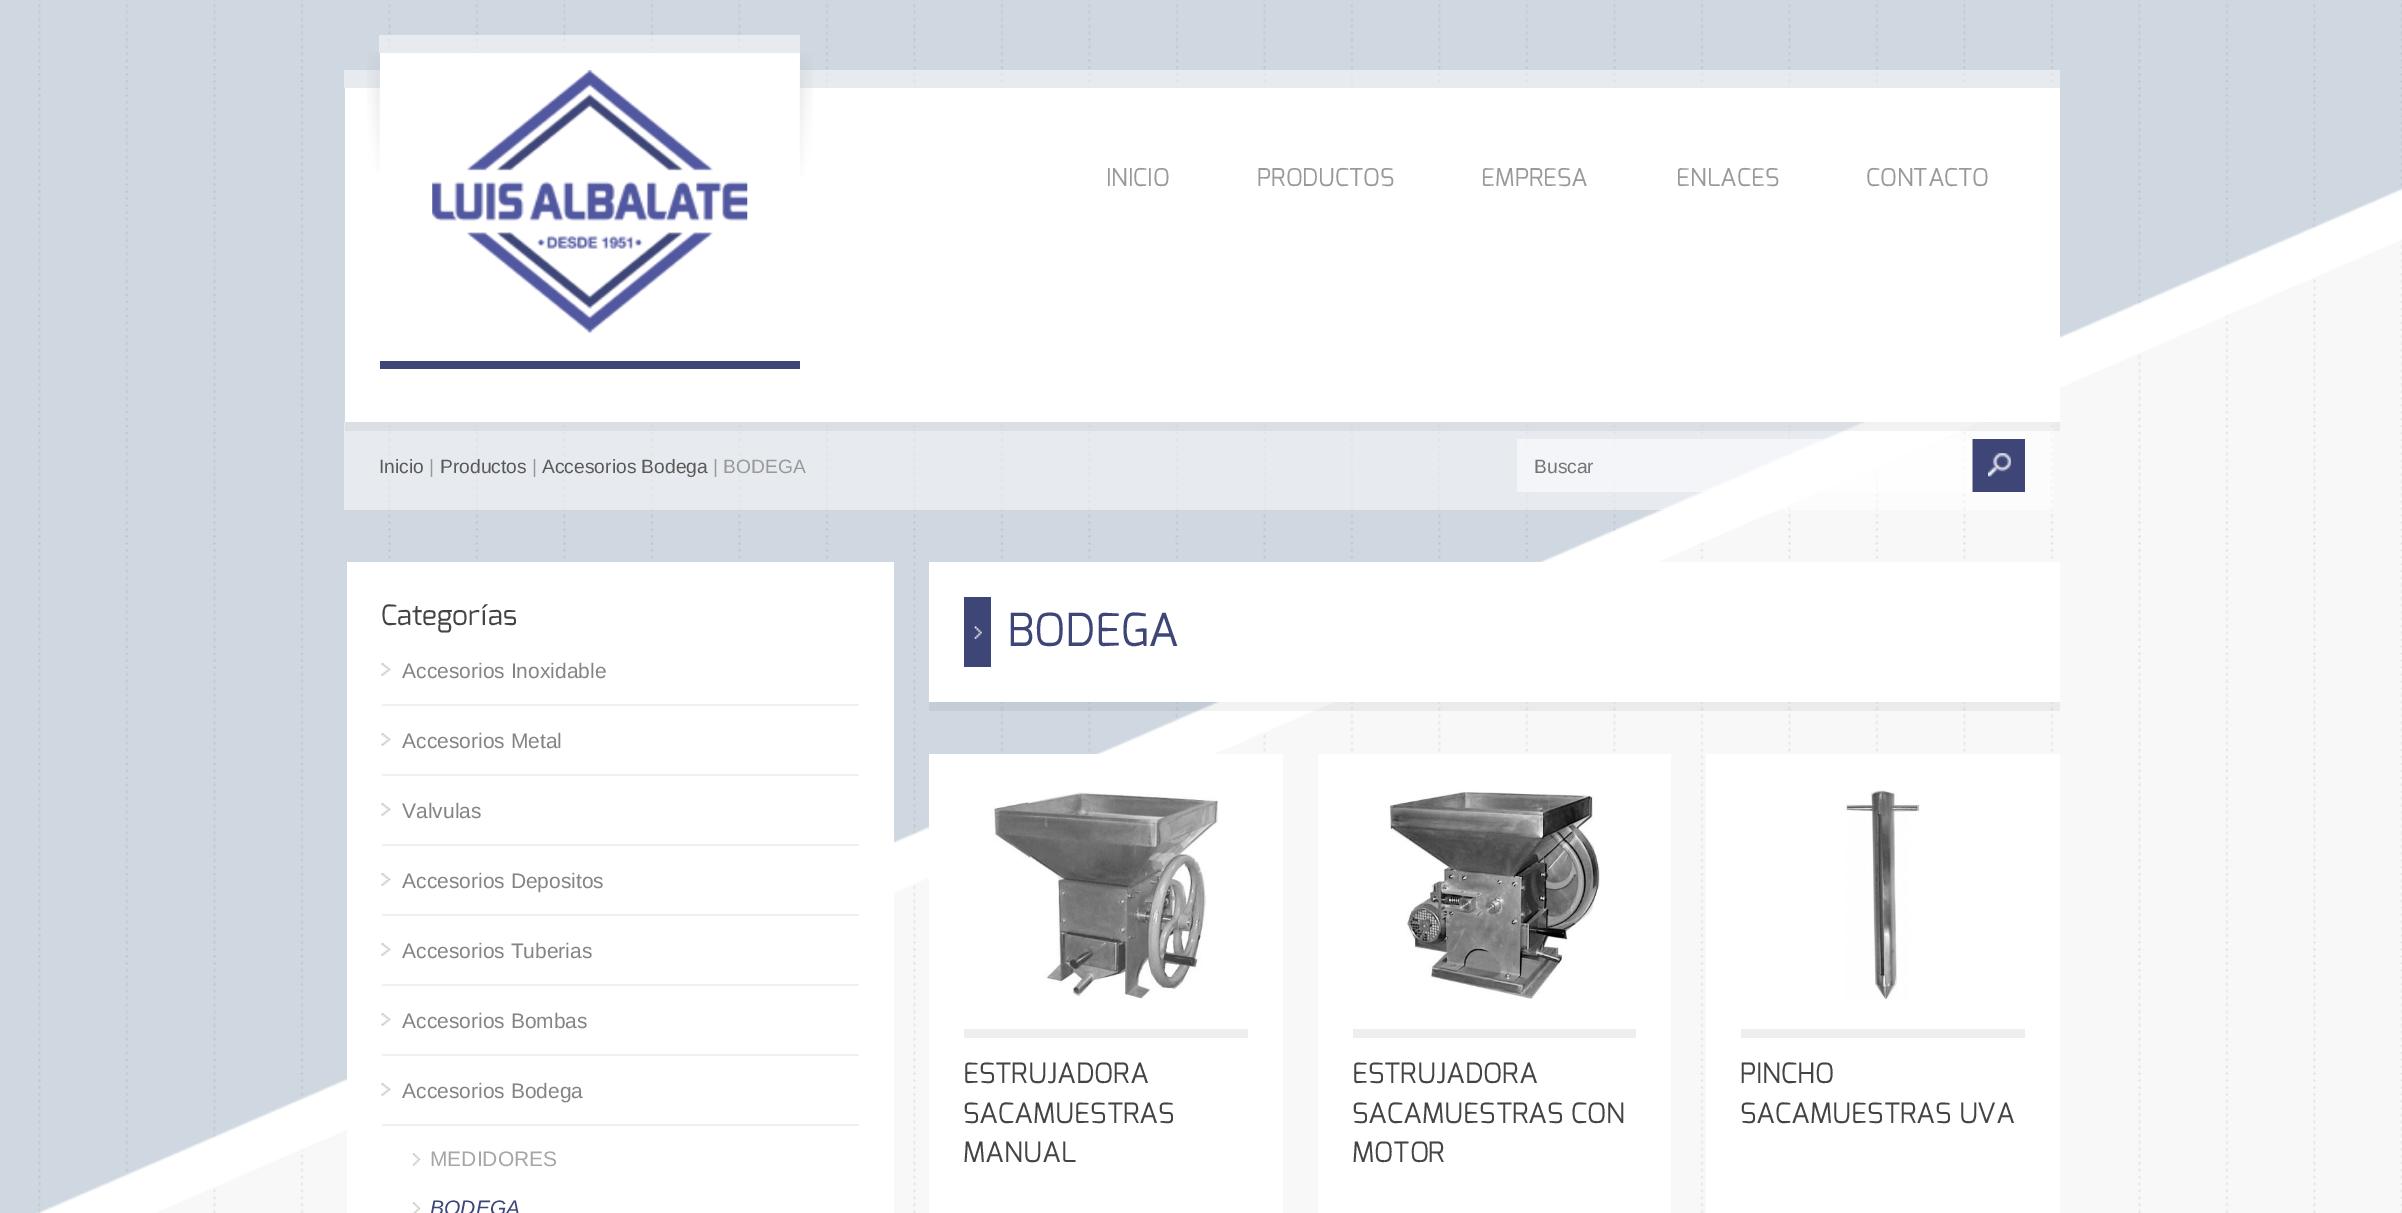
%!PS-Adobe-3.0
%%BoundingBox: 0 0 2402 1213
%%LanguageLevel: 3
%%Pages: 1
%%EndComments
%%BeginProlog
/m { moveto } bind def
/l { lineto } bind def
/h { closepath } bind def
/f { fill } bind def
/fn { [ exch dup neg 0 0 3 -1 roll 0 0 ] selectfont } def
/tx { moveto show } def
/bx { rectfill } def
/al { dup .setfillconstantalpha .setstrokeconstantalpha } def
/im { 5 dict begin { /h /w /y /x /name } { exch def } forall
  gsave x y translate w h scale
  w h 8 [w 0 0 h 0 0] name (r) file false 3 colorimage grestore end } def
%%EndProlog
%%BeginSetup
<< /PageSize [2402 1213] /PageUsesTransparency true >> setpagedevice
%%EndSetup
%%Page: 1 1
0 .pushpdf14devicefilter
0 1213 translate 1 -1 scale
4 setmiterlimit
1 setgray
0 0 2402 1213 bx
(image0.raw) 0 0 2402 1213 im
(image1.raw) 0 0 2402 1213 im
0.5 al
344 70 1716 18 bx
1 al
345 88 1715 334 bx
(image2.raw) 367 52 13 120 im
0.243 0.275 0.467 setrgbcolor
380 361 420 8 bx
0.5 al
1 setgray
379 35 421 18 bx
1 al
380 53 420 35 bx
(image3.raw) 432 70 316 263 im
(image4.raw) 799 52 14 124 im
/Exo-Regular 24.5 fn
0.6 setgray
(INICIO) 1106 186 tx
(PRODUCTOS) 1257 186 tx
(EMPRESA) 1481 186 tx
(ENLACES) 1676 186 tx
(CONTACTO) 1866 186 tx
0.5 al
1 setgray
344 422 1710 88 bx
0.05 al
0 setgray
345 422 1715 9 bx
/LiberationSans-Regular 19.25 fn
1 al
0.349 setgray
(Inicio) 379 473 tx
0.6 setgray
(|) 429 473 tx
0.349 setgray
(Productos) 440 473 tx
0.6 setgray
(|) 532 473 tx
0.349 setgray
(Accesorios Bodega) 542 473 tx
0.6 setgray
(| BODEGA) 713 473 tx
0.243 0.275 0.467 setrgbcolor
1972 439 53 53 bx
0.5 al
1 setgray
1517 439 456 53 bx
1 al
0.459 setgray
(Buscar) 1534 473 tx
(image5.raw) 1988 453 23 24 im
1 setgray
347 562 547 651 bx
/Exo-Regular 28 fn
0.267 setgray
(Categor) 381 625 tx
/LiberationSans-Regular 28 fn
(í) 480 625 tx
/Exo-Regular 28 fn
(as) 488 625 tx
(image6.raw) 381 663 10 13 im
0.941 setgray
382 704 477 2 bx
/LiberationSans-Regular 21 fn
0.518 setgray
(Accesorios Inoxidable) 402 678 tx
(image6.raw) 381 733 10 13 im
0.941 setgray
382 774 477 2 bx
0.518 setgray
(Accesorios Metal) 402 748 tx
(image6.raw) 381 803 10 13 im
0.941 setgray
382 844 477 2 bx
0.518 setgray
(Valvulas) 402 818 tx
(image6.raw) 381 873 10 13 im
0.941 setgray
382 914 477 2 bx
0.518 setgray
(Accesorios Depositos) 402 888 tx
(image6.raw) 381 943 10 13 im
0.941 setgray
382 984 477 2 bx
0.518 setgray
(Accesorios Tuberias) 402 958 tx
(image6.raw) 381 1013 10 13 im
0.941 setgray
382 1054 477 2 bx
0.518 setgray
(Accesorios Bombas) 402 1028 tx
(image6.raw) 381 1083 10 13 im
(Accesorios Bodega) 402 1098 tx
0.941 setgray
382 1124 477 2 bx
(image7.raw) 413 1153 7 13 im
0.651 setgray
(MEDIDORES) 430 1166 tx
(image8.raw) 413 1202 7 11 im
/LiberationSans-Italic 21 fn
0.243 0.275 0.467 setrgbcolor
(BODEGA) 430 1215 tx
0.05 al
0 setgray
929 571 m 929 711 l 2060 711 l 2060 571 l 2060 702 l 929 702 l h f
1 al
1 setgray
929 562 1131 140 bx
0.243 0.275 0.467 setrgbcolor
964 597 27 70 bx
(image9.raw) 974 626 8 13 im
/Exo-Regular 45.5 fn
(BODEGA) 1007 646 tx
1 setgray
929 754 354 459 bx
(image10.raw) 991 792 228 207 im
0.933 setgray
964 1029 284 9 bx
/Exo-Regular 28 fn
0.267 setgray
(ESTRUJADORA) 963 1083 tx
(SACAMUESTRAS) 963 1123 tx
(MANUAL) 963 1162 tx
1 setgray
1318 754 353 459 bx
(image11.raw) 1389 791 211 208 im
0.933 setgray
1353 1029 283 9 bx
0.267 setgray
(ESTRUJADORA) 1352 1083 tx
(SACAMUESTRAS CON) 1352 1123 tx
(MOTOR) 1352 1162 tx
1 setgray
1706 754 354 459 bx
(image12.raw) 1844 790 76 210 im
0.933 setgray
1741 1029 284 9 bx
0.267 setgray
(PINCHO) 1740 1083 tx
(SACAMUESTRAS UVA) 1740 1123 tx
.poppdf14devicefilter showpage
%%EOF
